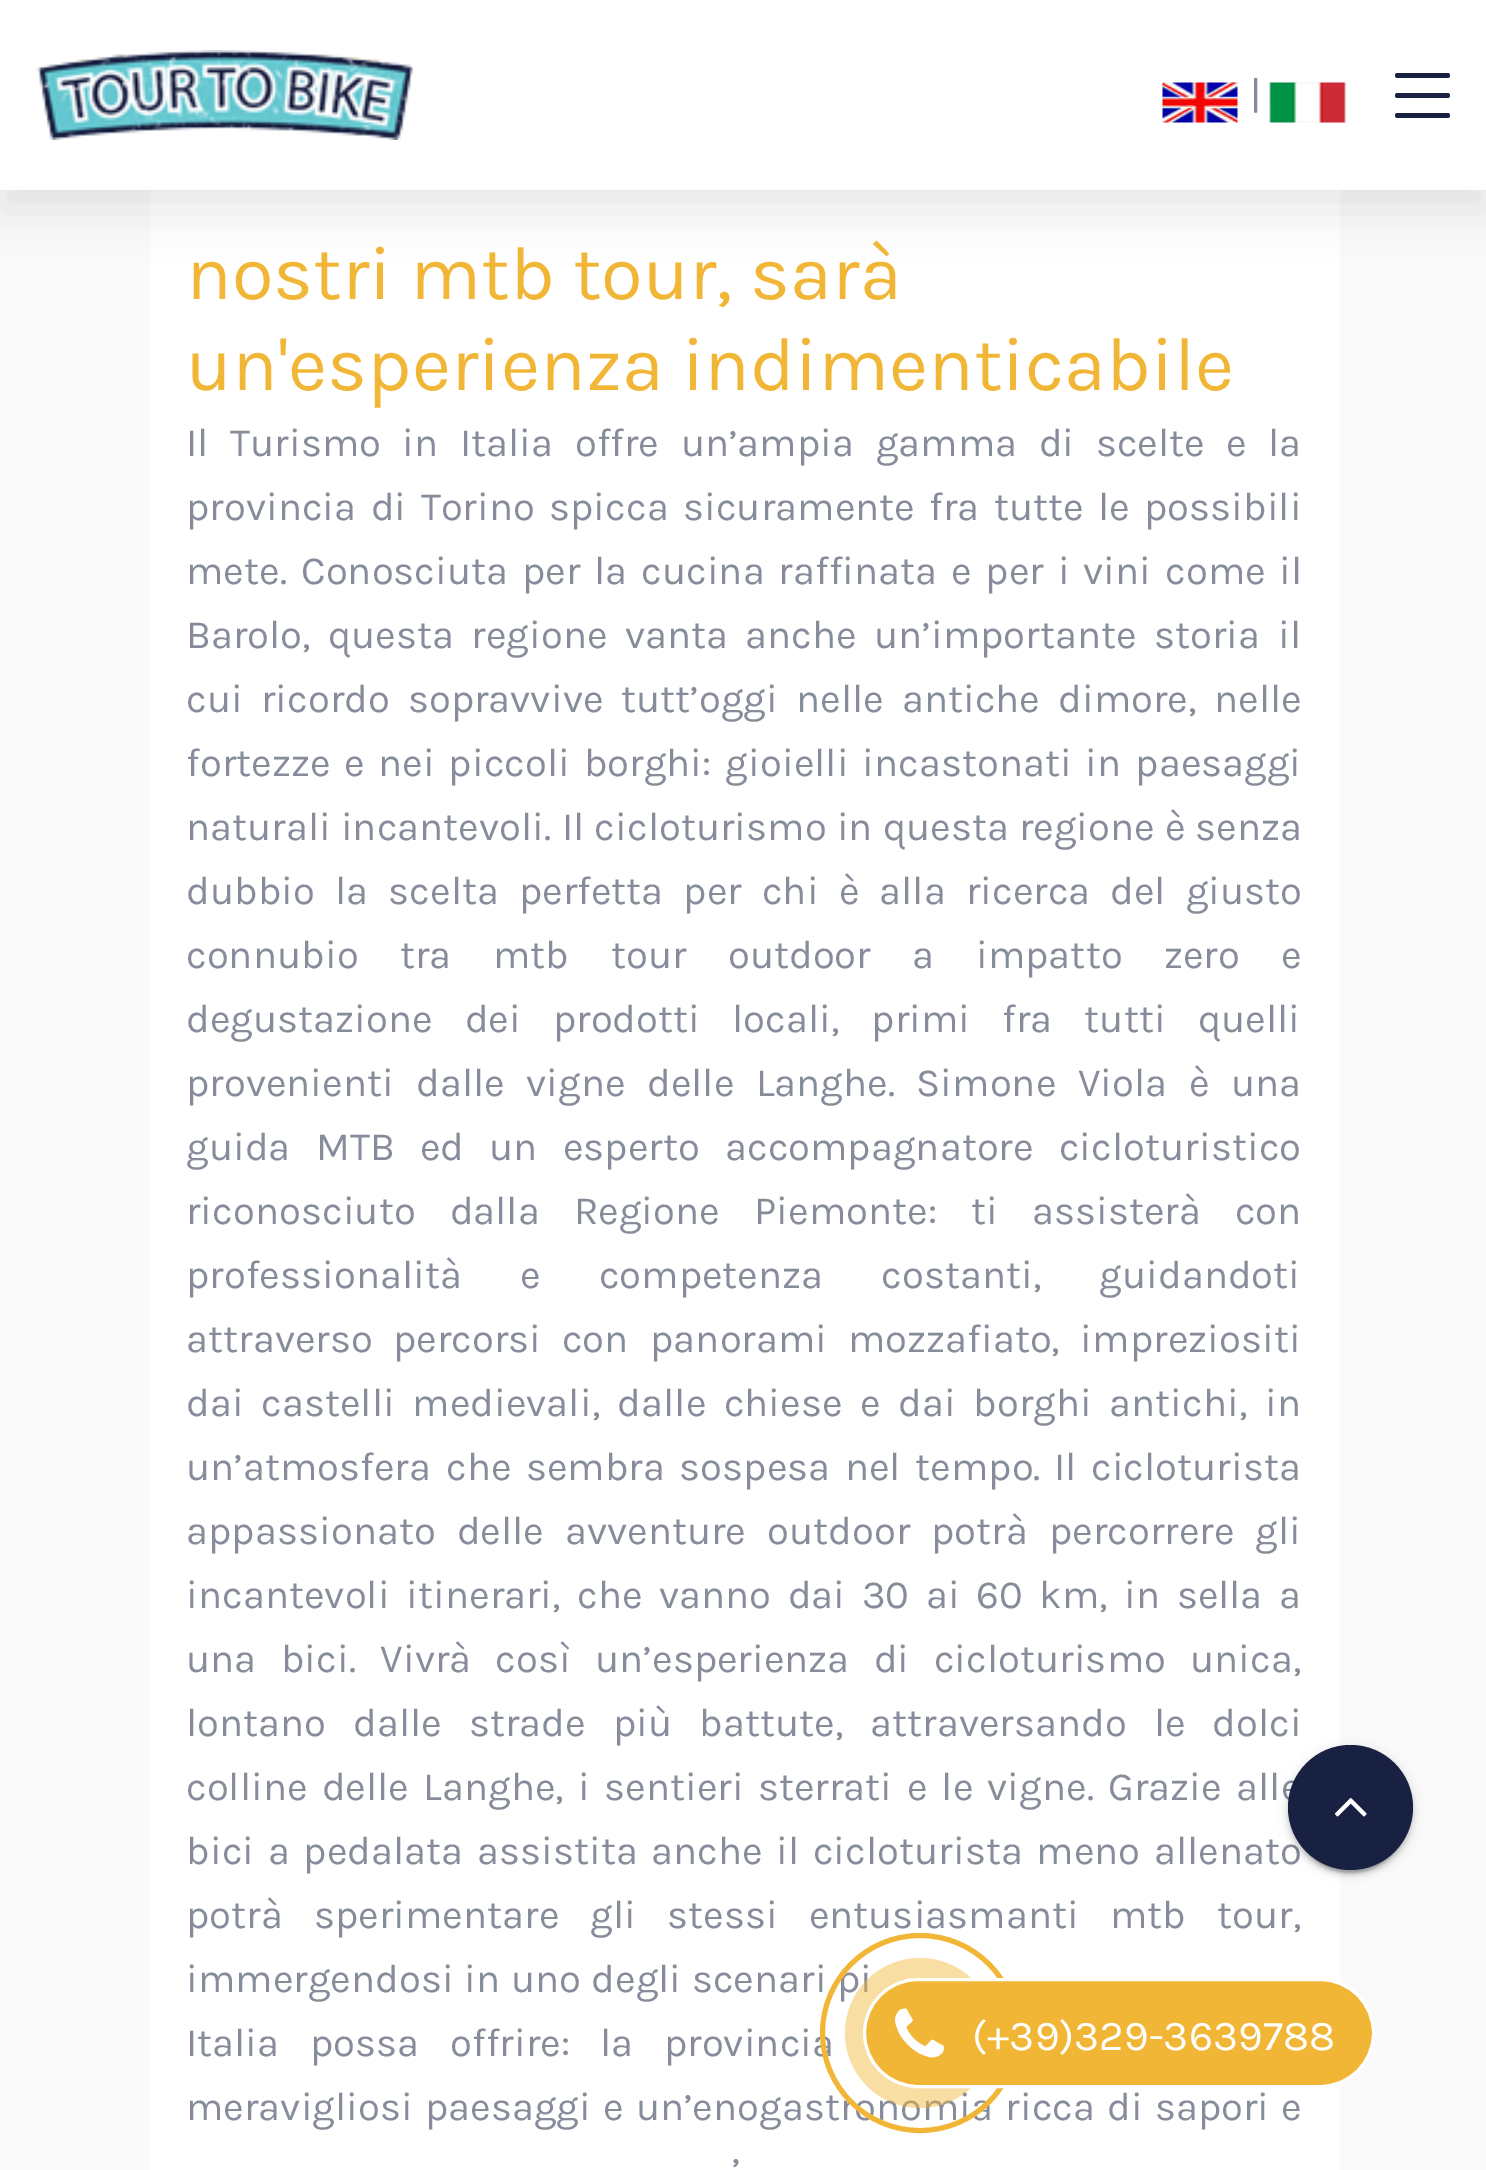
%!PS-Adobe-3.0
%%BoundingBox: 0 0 1486 2170
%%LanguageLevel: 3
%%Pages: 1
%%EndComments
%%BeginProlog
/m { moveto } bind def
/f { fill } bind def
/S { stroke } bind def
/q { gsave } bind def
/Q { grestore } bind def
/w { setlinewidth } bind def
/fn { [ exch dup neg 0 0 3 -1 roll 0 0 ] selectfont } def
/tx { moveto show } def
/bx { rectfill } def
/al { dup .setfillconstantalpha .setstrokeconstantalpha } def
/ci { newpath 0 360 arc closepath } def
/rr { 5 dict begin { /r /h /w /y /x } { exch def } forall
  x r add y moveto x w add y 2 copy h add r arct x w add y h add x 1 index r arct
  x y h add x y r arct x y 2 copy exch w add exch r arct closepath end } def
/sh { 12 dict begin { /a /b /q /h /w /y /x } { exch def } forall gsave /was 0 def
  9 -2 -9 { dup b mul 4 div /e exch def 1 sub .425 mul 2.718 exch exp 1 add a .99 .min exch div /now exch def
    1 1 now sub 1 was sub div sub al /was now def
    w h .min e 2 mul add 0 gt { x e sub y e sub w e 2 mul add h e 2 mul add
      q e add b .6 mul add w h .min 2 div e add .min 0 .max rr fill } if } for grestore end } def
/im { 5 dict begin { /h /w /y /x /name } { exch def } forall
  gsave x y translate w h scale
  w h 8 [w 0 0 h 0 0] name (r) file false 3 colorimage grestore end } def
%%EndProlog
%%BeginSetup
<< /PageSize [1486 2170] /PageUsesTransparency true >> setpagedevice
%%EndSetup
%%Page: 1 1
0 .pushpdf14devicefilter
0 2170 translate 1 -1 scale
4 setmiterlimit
0.98 setgray
0 0 1486 2170 bx
1 setgray
150 190 1190 1980 bx
0 setgray
0 20 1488 190 0 25 0.1 sh
1 setgray
0 0 1486 190 bx
(image0.raw) 37 50 376 90 im
(image1.raw) 1162 82 76 41 im
/Karla-Regular 40 fn
0.529 0.549 0.608 setrgbcolor
(|) 1250 108 tx
(image2.raw) 1269 82 77 41 im
0.094 0.129 0.255 setrgbcolor
1395 73 55 5 2.5 rr f
1395 93 55 5 2.5 rr f
1395 113 55 5 2.5 rr f
/Karla-Regular 76 fn
0.949 0.714 0.212 setrgbcolor
(nostri mtb tour, sarà) 186 299 tx
(un'esperienza indimenticabile) 186 390 tx
/Karla-Regular 40 fn
0.529 0.549 0.608 setrgbcolor
186 456 m 12 0 32 (Il Turismo in Italia offre un’ampia gamma di scelte e la) widthshow
186 520 m 4.75 0 32 (provincia di Torino spicca sicuramente fra tutte le possibili) widthshow
(mete.) 186 584 tx
301 584 m 4.25 0 32 (Conosciuta per la cucina raffinata e per i vini come il) widthshow
186 648 m 7.75 0 32 (Barolo, questa regione vanta anche un’importante) widthshow
1154 648 m 8 0 32 (storia il) widthshow
186 712 m 8.5 0 32 (cui ricordo sopravvive tutt’oggi nelle antiche dimore, nelle) widthshow
186 776 m 4.25 0 32 (fortezze e nei piccoli borghi: gioielli) widthshow
862 776 m 4.25 0 32 (incastonati in paesaggi) widthshow
(naturali incantevoli.) 186 840 tx
562 840 m 0.5 0 32 (Il cicloturismo in questa regione è senza) widthshow
186 904 m 10.5 0 32 (dubbio la scelta perfetta per chi è alla ricerca del giusto) widthshow
(connubio) 186 968 tx
400 968 m 32 0 32 (tra mtb tour outdoor a impatto zero e) widthshow
186 1032 m 22.5 0 32 (degustazione dei prodotti locali, primi fra tutti quelli) widthshow
(provenienti) 186 1096 tx
416 1096 m 12 0 32 (dalle vigne delle Langhe.) widthshow
916 1096 m 12 0 32 (Simone Viola è una) widthshow
186 1160 m 15.75 0 32 (guida MTB ed un esperto accompagnatore cicloturistico) widthshow
186 1224 m 24.5 0 32 (riconosciuto dalla Regione) widthshow
754 1224 m 24.5 0 32 (Piemonte: ti assisterà con) widthshow
186 1288 m 48.5 0 32 (professionalità e competenza costanti, guidandoti) widthshow
186 1352 m 11 0 32 (attraverso percorsi con) widthshow
650 1352 m 11 0 32 (panorami mozzafiato, impreziositi) widthshow
186 1416 m 8 0 32 (dai castelli medievali, dalle chiese e dai borghi antichi, in) widthshow
(un’atmosfera) 186 1480 tx
446 1480 m 5 0 32 (che sembra sospesa nel tempo.) widthshow
1054 1480 m 5 0 32 (Il cicloturista) widthshow
186 1544 m 11.5 0 32 (appassionato delle avventure outdoor potrà percorrere gli) widthshow
186 1608 m 7 0 32 (incantevoli itinerari,) widthshow
577 1608 m 7 0 32 (che vanno dai 30 ai 60 km, in sella a) widthshow
186 1672 m 14.75 0 32 (una bici. Vivrà così un’esperienza di cicloturismo unica,) widthshow
186 1736 m 17.5 0 32 (lontano dalle strade più battute, attraversando le dolci) widthshow
186 1800 m 4.75 0 32 (colline delle Langhe, i sentieri sterrati e le vigne.) widthshow
1108 1800 m 5 0 32 (Grazie alle) widthshow
186 1864 m 4 0 32 (bici a pedalata assistita anche il cicloturista meno allenato) widthshow
186 1928 m 21.5 0 32 (potrà sperimentare gli) widthshow
667 1928 m 21.5 0 32 (stessi entusiasmanti mtb tour,) widthshow
186 1992 m 1 0 32 (immergendosi in uno degli scenari pi) widthshow
186 2056 m 21 0 32 (Italia possa) widthshow
(offrire:) 450 2056 tx
600 2056 m 21 0 32 (la provincia) widthshow
186 2120 m 2.5 0 32 (meravigliosi paesaggi e un’enogastronomia ricca di sapori e) widthshow
732 2184 m 20 0 32 (’) widthshow
0 setgray
1293 1758 115 115 57.5 1 0.2 sh
1288 1748 125 125 62.5 6 0.12 sh
1288 1750 125 125 62.5 2.5 0.14 sh
0.094 0.129 0.255 setrgbcolor
1350.5 1807.5 62.5 ci f
(image3.raw) 1335 1798 32 19 im
0.949 0.714 0.212 setrgbcolor
5 w
920 2033 97.5 ci S
0.46 al
920 2033 75 ci f
1 al
864.5 1979.5 509 107 53.5 rr q f Q
1 setgray
3 w
S
(image4.raw) 895 2008 50 50 im
/Karla-Regular 42.5 fn
(\(+39\)329-3639788) 972 2050 tx
.poppdf14devicefilter showpage
%%EOF
